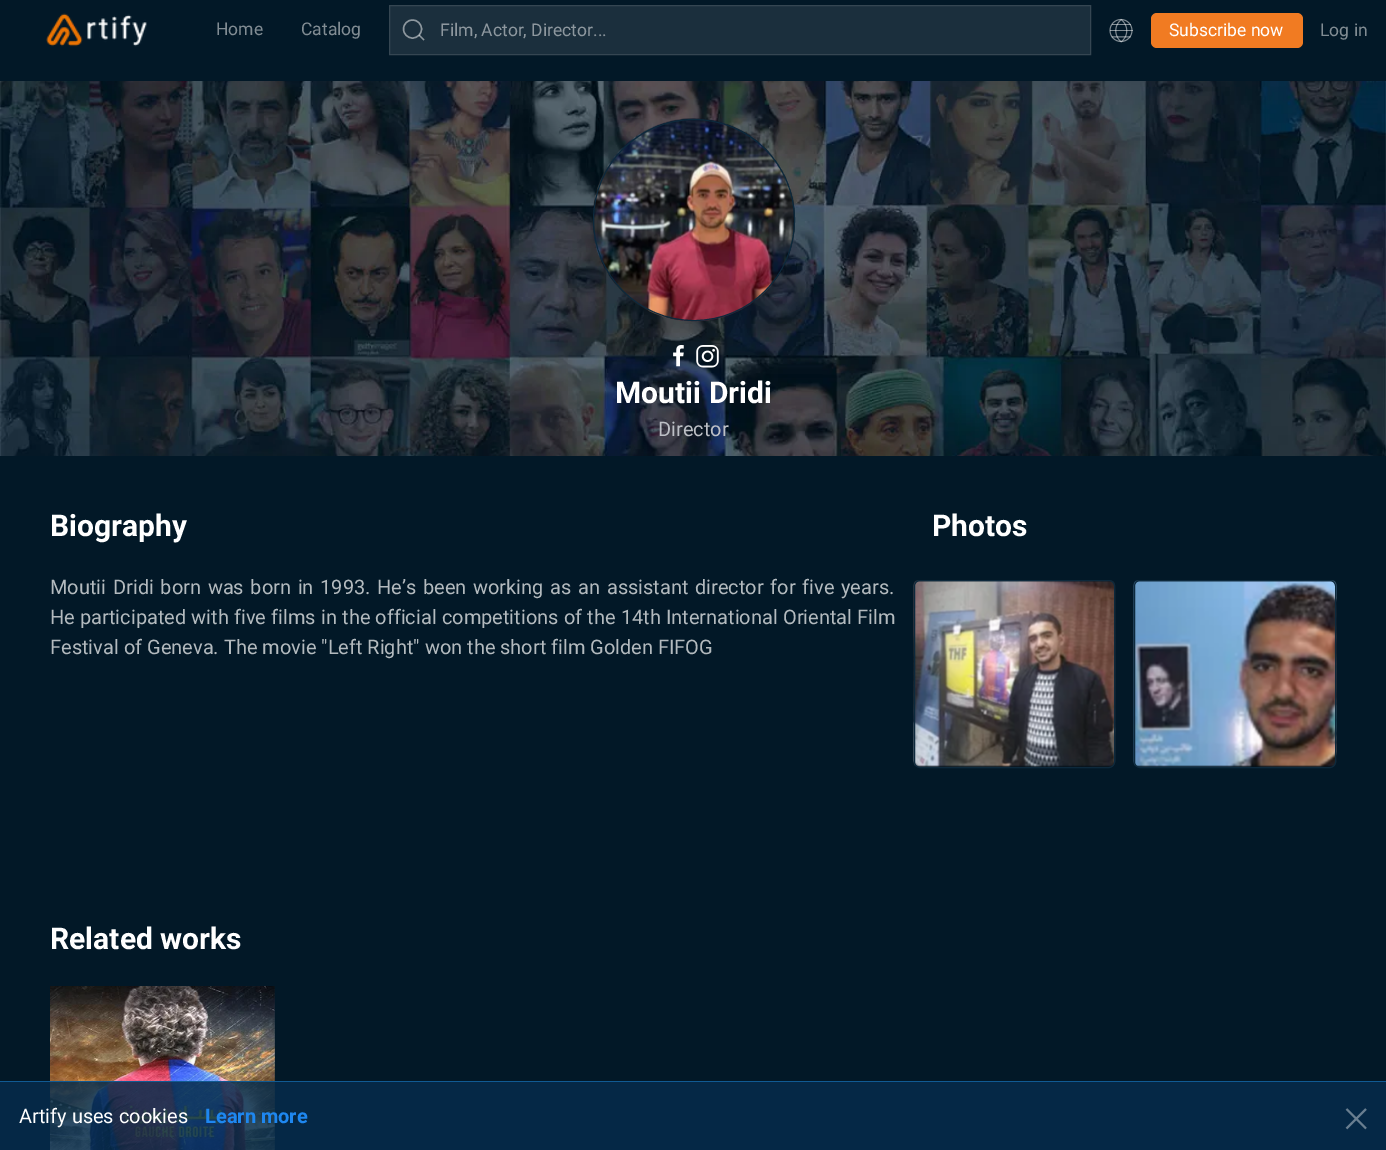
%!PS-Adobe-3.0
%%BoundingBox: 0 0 1386 1150
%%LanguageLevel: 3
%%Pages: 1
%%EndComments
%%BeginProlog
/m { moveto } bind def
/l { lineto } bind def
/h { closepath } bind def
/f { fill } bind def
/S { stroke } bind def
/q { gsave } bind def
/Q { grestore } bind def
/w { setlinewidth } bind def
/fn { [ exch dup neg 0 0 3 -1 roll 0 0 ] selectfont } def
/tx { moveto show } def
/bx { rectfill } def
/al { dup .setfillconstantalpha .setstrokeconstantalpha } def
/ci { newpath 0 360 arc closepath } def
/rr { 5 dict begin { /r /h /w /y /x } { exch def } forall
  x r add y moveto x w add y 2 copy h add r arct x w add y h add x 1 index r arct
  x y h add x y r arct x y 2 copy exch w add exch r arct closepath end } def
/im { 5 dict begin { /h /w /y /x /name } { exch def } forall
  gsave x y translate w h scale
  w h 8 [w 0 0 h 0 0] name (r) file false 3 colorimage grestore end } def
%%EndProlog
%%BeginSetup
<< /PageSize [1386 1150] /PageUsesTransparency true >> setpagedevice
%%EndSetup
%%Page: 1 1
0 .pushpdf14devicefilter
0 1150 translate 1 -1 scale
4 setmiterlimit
0.008 0.094 0.153 setrgbcolor
0 0 1386 1150 bx
(image0.raw) 46 13 101 34 im
/Roboto-Regular 17.5 fn
0.506 0.549 0.576 setrgbcolor
(Home) 216 35 tx
(Catalog) 301 35 tx
0.106 0.184 0.239 setrgbcolor
389.5 5.5 m 1090.5 5.5 l 1090.5 54.5 l 389.5 54.5 l h q f Q
0.208 0.275 0.322 setrgbcolor
S
0.553 0.592 0.62 setrgbcolor
1.4 w
412.5 29 9 ci S
0.5 al
1 setgray
419 35 m 424 40 l h S
1 al
0.553 0.592 0.62 setrgbcolor
(Film, Actor, Director...) 440 36 tx
(image1.raw) 1109 18 24 25 im
0.945 0.482 0.133 setrgbcolor
1151 13 152 35 6 rr f
1 setgray
(Subscribe now) 1169 36 tx
0.506 0.549 0.576 setrgbcolor
(Log in) 1320 36 tx
(image2.raw) 0 81 1386 375 im
0.012 0.067 0.11 setrgbcolor
694 220 101 ci f
(image3.raw) 593 118 202 204 im
0.051 0.161 0.235 setrgbcolor
1 w
694 220 100.5 ci S
(image4.raw) 673 345 11 22 im
(image5.raw) 696 345 23 23 im
/Roboto-Bold 30 fn
1 setgray
(Moutii Dridi) 615 403 tx
/Roboto-Regular 20 fn
0.741 0.753 0.776 setrgbcolor
(Director) 658 436 tx
/Roboto-Bold 30 fn
1 setgray
(Biography) 50 536 tx
/Roboto-Regular 20 fn
0.702 0.729 0.745 setrgbcolor
50 594 m 1.75 0 32 (Moutii Dridi born was born in 1993. He’s been working as an assistant director for five years.) widthshow
50 624 m 0.25 0 32 (He participated with five films in the official competitions of the 14th International Oriental Film) widthshow
(Festival of Geneva. The movie "Left Right" won the short film Golden FIFOG) 50 654 tx
/Roboto-Bold 30 fn
1 setgray
(Photos) 932 536 tx
0.012 0.067 0.11 setrgbcolor
914 580 201 188 6 rr f
(image6.raw) 913 580 203 187 im
0.051 0.161 0.235 setrgbcolor
914.5 580.5 200 187 5.5 rr S
0.012 0.067 0.11 setrgbcolor
1134 580 202 188 6 rr f
(image7.raw) 1133 580 204 187 im
0.051 0.161 0.235 setrgbcolor
1134.5 580.5 201 187 5.5 rr S
1 setgray
(Related works) 50 949 tx
(image8.raw) 50 986 225 164 im
0.85 al
0.02 0.169 0.294 setrgbcolor
0 1082 1386 68 bx
1 al
0.063 0.353 0.576 setrgbcolor
0 1081 1386 1 bx
/Roboto-Regular 20 fn
1 setgray
(Artify uses cookies) 19 1123 tx
/Roboto-Bold 20 fn
0.118 0.529 0.941 setrgbcolor
(Learn more) 205 1123 tx
0.412 0.494 0.565 setrgbcolor
1.8 w
1346.5 1109 m 1366 1128.5 l 1366 1109 m 1346.5 1128.5 l S
.poppdf14devicefilter showpage
%%EOF
